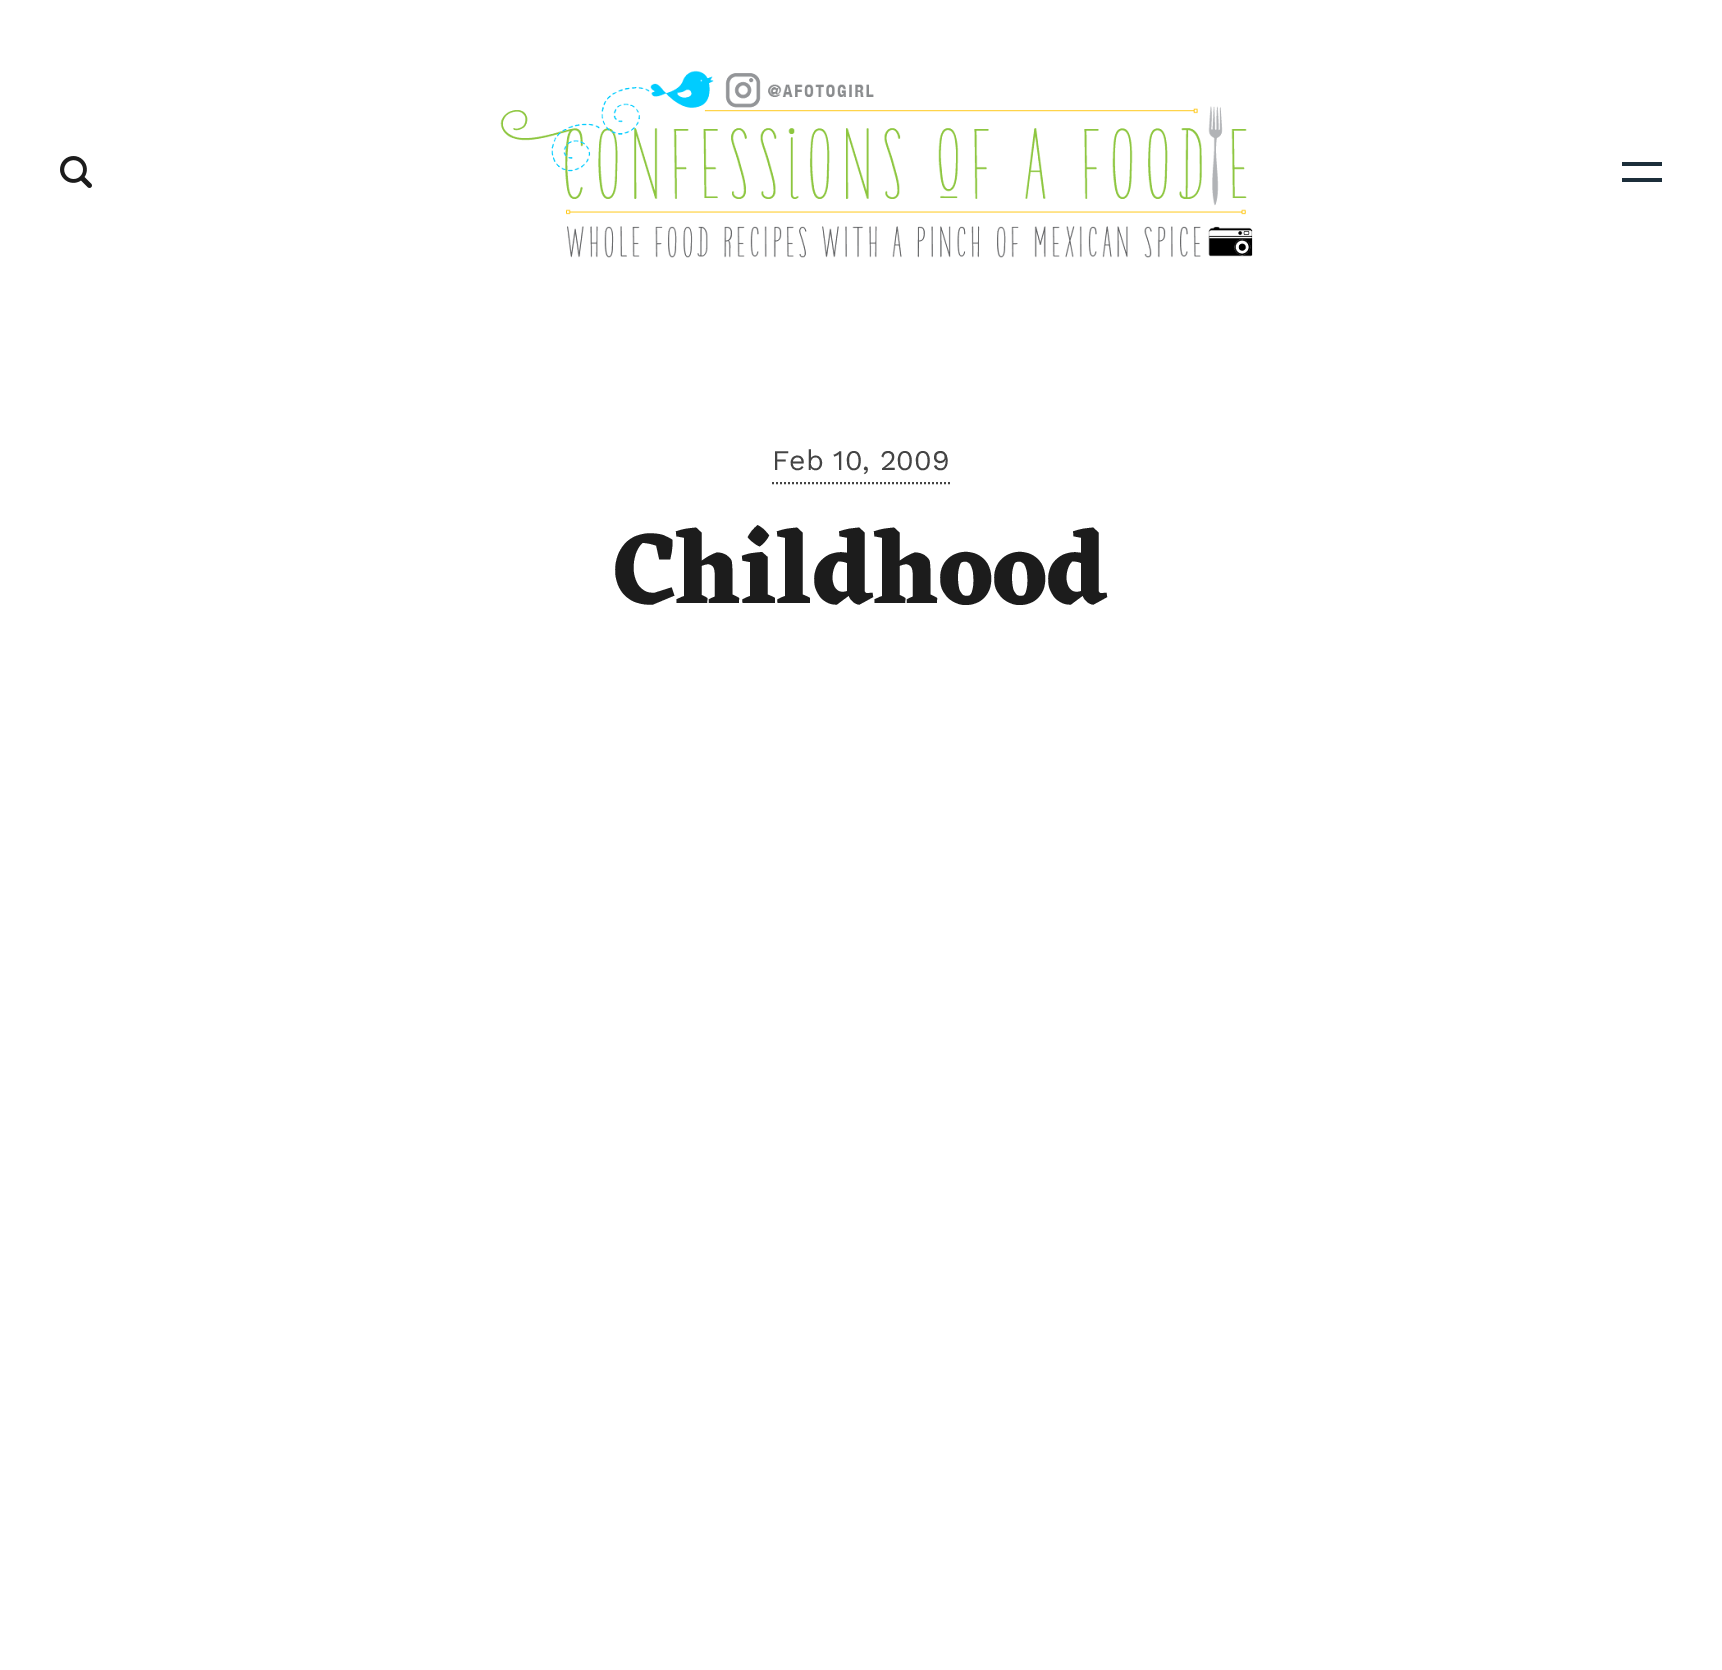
%!PS-Adobe-3.0
%%BoundingBox: 0 0 1722 1670
%%LanguageLevel: 3
%%Pages: 1
%%EndComments
%%BeginProlog
/m { moveto } bind def
/l { lineto } bind def
/S { stroke } bind def
/w { setlinewidth } bind def
/fn { [ exch dup neg 0 0 3 -1 roll 0 0 ] selectfont } def
/tx { moveto show } def
/bx { rectfill } def
/im { 5 dict begin { /h /w /y /x /name } { exch def } forall
  gsave x y translate w h scale
  w h 8 [w 0 0 h 0 0] name (r) file false 3 colorimage grestore end } def
%%EndProlog
%%BeginSetup
<< /PageSize [1722 1670] >> setpagedevice
%%EndSetup
%%Page: 1 1
0 1670 translate 1 -1 scale
4 setmiterlimit
1 setgray
0 0 1722 1670 bx
(image0.raw) 60 156 32 32 im
(image1.raw) 500 70 753 188 im
0.11 0.18 0.227 setrgbcolor
1622 162 40 4 bx
1622 178 40 4 bx
/WorkSans-Regular 28.5 fn
0.267 setgray
(Feb 10, 2009) 772 470 tx
2 w
[2 2] 0 setdash
772 483 m 950 483 l S
/Eczar-Bold 102.5 fn
0.11 setgray
(Childhood) 614 603 tx
showpage
%%EOF
